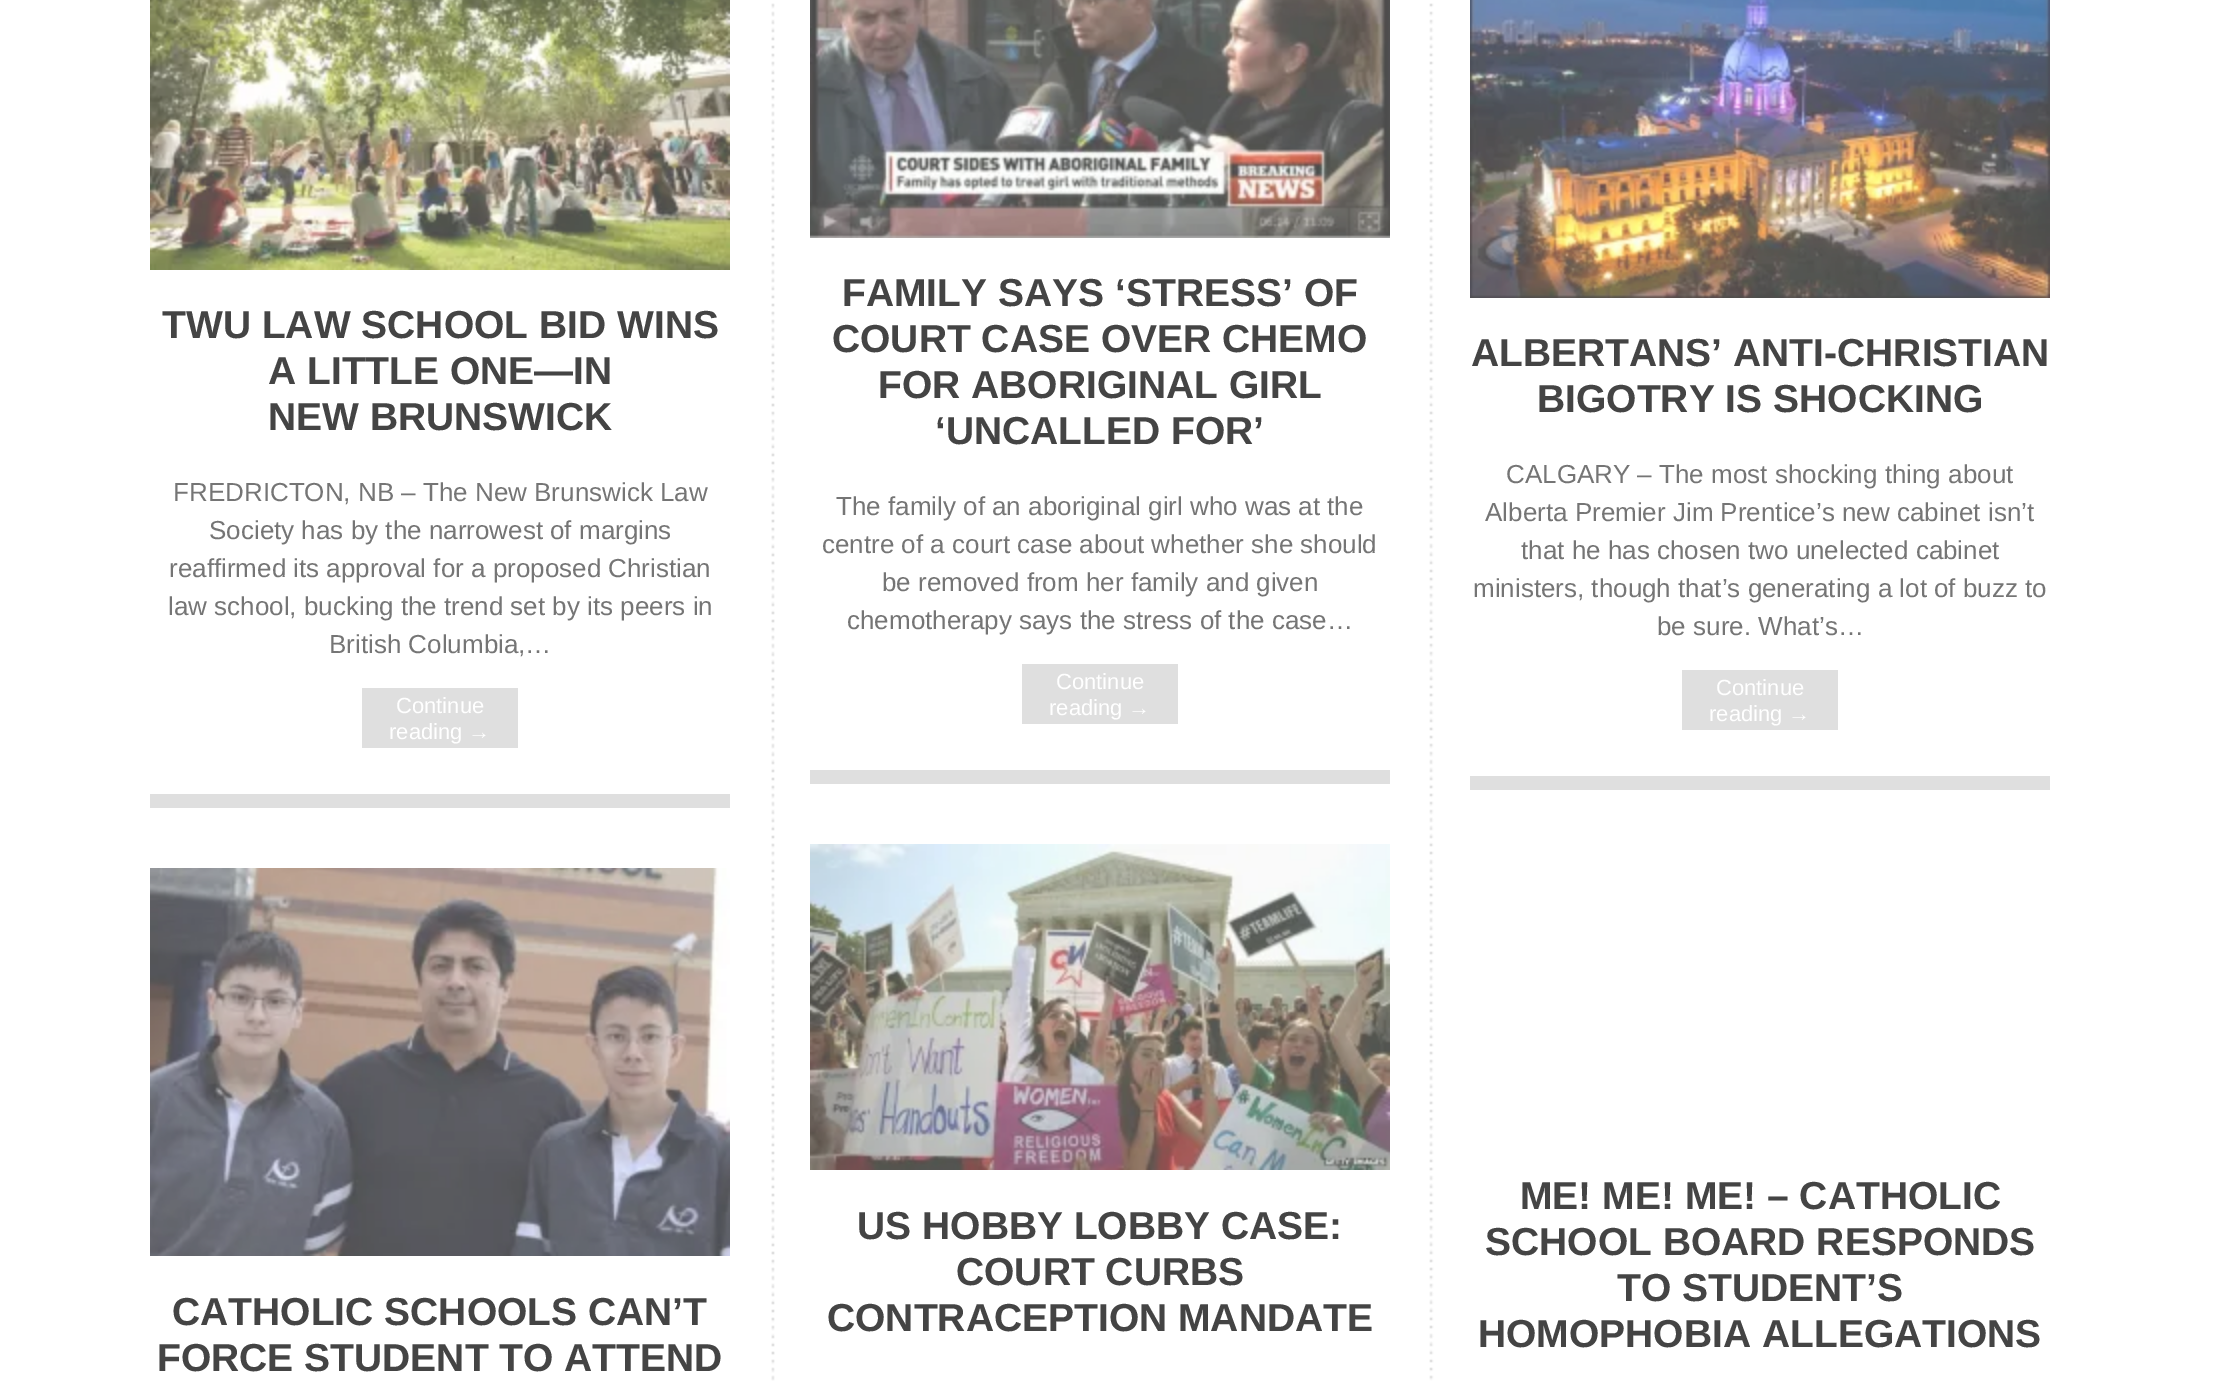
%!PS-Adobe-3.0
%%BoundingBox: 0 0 2220 1383
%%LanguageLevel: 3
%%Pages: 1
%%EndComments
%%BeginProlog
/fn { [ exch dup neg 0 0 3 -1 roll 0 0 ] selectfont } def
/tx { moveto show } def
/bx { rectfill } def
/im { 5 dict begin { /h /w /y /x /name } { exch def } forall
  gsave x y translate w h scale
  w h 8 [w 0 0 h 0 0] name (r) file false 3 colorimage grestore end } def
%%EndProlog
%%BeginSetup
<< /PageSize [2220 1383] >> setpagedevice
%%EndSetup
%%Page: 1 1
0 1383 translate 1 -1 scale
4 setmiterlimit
1 setgray
0 0 2220 1383 bx
(image0.raw) 771 3 663 1378 im
0.875 setgray
150 794 580 14 bx
(image1.raw) 150 0 580 270 im
/LiberationSans-Bold 39 fn
0.267 setgray
(TWU LAW SCHOOL BID WINS) 162 338 tx
(A LITTLE ONE—IN) 268 384 tx
(NEW BRUNSWICK) 268 430 tx
/LiberationSans-Regular 26 fn
0.459 setgray
(FREDRICTON, NB – The New Brunswick Law) 173 501 tx
(Society has by the narrowest of margins) 209 539 tx
(reaffirmed its approval for a proposed Christian) 169 577 tx
(law school, bucking the trend set by its peers in) 168 615 tx
(British Columbia,…) 329 653 tx
0.875 setgray
362 688 156 60 bx
/LiberationSans-Regular 22 fn
1 setgray
(Continue) 396 713 tx
(reading →) 389 739 tx
0.875 setgray
810 770 580 14 bx
(image2.raw) 810 0 580 238 im
/LiberationSans-Bold 39 fn
0.267 setgray
(FAMILY SAYS ‘STRESS’ OF) 842 306 tx
(COURT CASE OVER CHEMO) 832 352 tx
(FOR ABORIGINAL GIRL) 878 398 tx
(‘UNCALLED FOR’) 935 444 tx
/LiberationSans-Regular 26 fn
0.459 setgray
(The family of an aboriginal girl who was at the) 836 515 tx
(centre of a court case about whether she should) 822 553 tx
(be removed from her family and given) 882 591 tx
(chemotherapy says the stress of the case…) 847 629 tx
0.875 setgray
1022 664 156 60 bx
/LiberationSans-Regular 22 fn
1 setgray
(Continue) 1056 689 tx
(reading →) 1049 715 tx
0.875 setgray
1470 776 580 14 bx
(image3.raw) 1470 0 580 298 im
/LiberationSans-Bold 39 fn
0.267 setgray
(ALBERTANS’ ANTI-CHRISTIAN) 1471 366 tx
(BIGOTRY IS SHOCKING) 1537 412 tx
/LiberationSans-Regular 26 fn
0.459 setgray
(CALGARY – The most shocking thing about) 1506 483 tx
(Alberta Premier Jim Prentice’s new cabinet isn’t) 1485 521 tx
(that he has chosen two unelected cabinet) 1521 559 tx
(ministers, though that’s generating a lot of buzz to) 1473 597 tx
(be sure. What’s…) 1657 635 tx
0.875 setgray
1682 670 156 60 bx
/LiberationSans-Regular 22 fn
1 setgray
(Continue) 1716 695 tx
(reading →) 1709 721 tx
(image4.raw) 150 868 580 388 im
/LiberationSans-Bold 39 fn
0.267 setgray
(CATHOLIC SCHOOLS CAN’T) 172 1325 tx
(FORCE STUDENT TO ATTEND) 157 1371 tx
(image5.raw) 810 844 580 326 im
(US HOBBY LOBBY CASE:) 857 1239 tx
(COURT CURBS) 956 1285 tx
(CONTRACEPTION MANDATE) 827 1331 tx
(ME! ME! ME! – CATHOLIC) 1520 1209 tx
(SCHOOL BOARD RESPONDS) 1485 1255 tx
(TO STUDENT’S) 1617 1301 tx
(HOMOPHOBIA ALLEGATIONS) 1478 1347 tx
showpage
%%EOF
